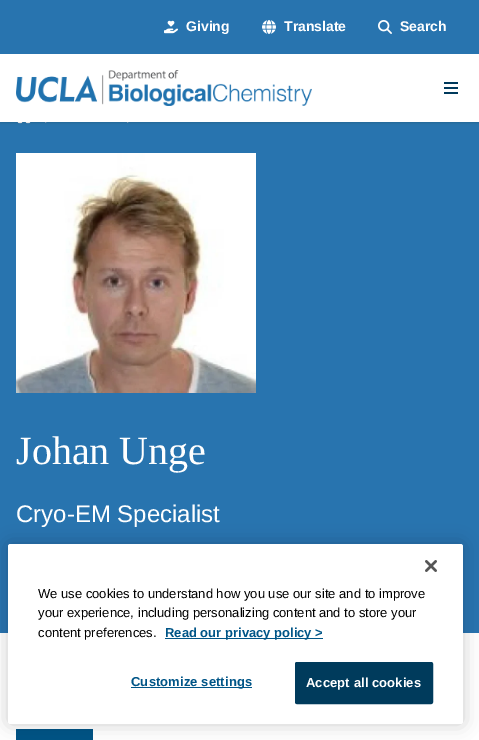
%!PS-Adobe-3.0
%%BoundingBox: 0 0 479 740
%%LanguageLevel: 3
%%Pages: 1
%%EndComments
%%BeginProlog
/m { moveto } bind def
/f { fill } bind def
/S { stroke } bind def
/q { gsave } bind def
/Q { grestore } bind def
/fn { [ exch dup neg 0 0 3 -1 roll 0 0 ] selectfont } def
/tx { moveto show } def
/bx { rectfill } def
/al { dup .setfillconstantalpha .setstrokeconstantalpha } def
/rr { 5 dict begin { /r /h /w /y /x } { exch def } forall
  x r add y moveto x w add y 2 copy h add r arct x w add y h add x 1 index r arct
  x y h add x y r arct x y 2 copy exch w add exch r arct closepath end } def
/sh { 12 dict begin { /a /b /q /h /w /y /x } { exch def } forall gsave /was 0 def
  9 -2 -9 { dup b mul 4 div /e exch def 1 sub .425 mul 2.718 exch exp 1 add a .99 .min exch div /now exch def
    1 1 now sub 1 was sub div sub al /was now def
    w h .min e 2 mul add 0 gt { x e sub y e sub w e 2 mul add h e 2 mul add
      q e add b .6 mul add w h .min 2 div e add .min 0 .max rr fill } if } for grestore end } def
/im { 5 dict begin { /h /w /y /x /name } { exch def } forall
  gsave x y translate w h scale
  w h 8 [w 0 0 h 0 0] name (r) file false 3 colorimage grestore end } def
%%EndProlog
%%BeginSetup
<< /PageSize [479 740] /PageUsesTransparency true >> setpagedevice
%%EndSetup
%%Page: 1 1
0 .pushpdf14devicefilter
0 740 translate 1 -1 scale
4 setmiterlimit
1 setgray
0 0 479 740 bx
0.157 0.455 0.686 setrgbcolor
0 122 479 511 bx
(image4.raw) 17 122 14 2 im
(image5.raw) 45 122 2 1 im
(image5.raw) 127 122 2 1 im
0 setgray
1 2 477 120 0 1 0.1 sh
0 1 479 122 0 1.5 0.1 sh
1 setgray
0 54 479 68 bx
0.157 0.455 0.686 setrgbcolor
0 0 479 54 bx
(image0.raw) 164 20 14 14 im
/LiberationSans-Bold 14 fn
1 setgray
(Giving) 186 31 tx
(image1.raw) 262 20 14 14 im
(Translate) 284 31 tx
(image2.raw) 378 20 14 14 im
(Search) 400 31 tx
(image3.raw) 16 70 296 36 im
0 0.227 0.361 setrgbcolor
444 82 14 2 bx
444 87 14 2 bx
444 92 14 2 bx
(image6.raw) 16 153 240 240 im
/LiberationSerif-Regular 40 fn
1 setgray
(Johan Unge) 16 464 tx
/LiberationSans-Regular 24 fn
(Cryo‐EM Specialist) 16 522 tx
0 0.329 0.522 setrgbcolor
16 729 77 11 bx
0 setgray
8 544 455 180 2.5 9 0.2 sh
1 setgray
8 544 455 180 2.5 rr f
(image7.raw) 425 560 12 12 im
/LiberationSans-Regular 13 fn
0 setgray
(We use cookies to understand how you use our site and to improve) 38 598 tx
(your experience, including personalizing content and to store your) 38 617 tx
(content preferences.) 38 637 tx
0 0.333 0.529 setrgbcolor
165 638 158 1 bx
/LiberationSans-Bold 13 fn
(Read our privacy policy >) 165 637 tx
131 687 121 1 bx
131 686 m 0.1 0 (Customize settings) ashow
0 0.231 0.361 setrgbcolor
295.5 662.5 137 41 1.5 rr q f Q
S
1 setgray
306 687 m 0.1 0 (Accept all cookies) ashow
.poppdf14devicefilter showpage
%%EOF
